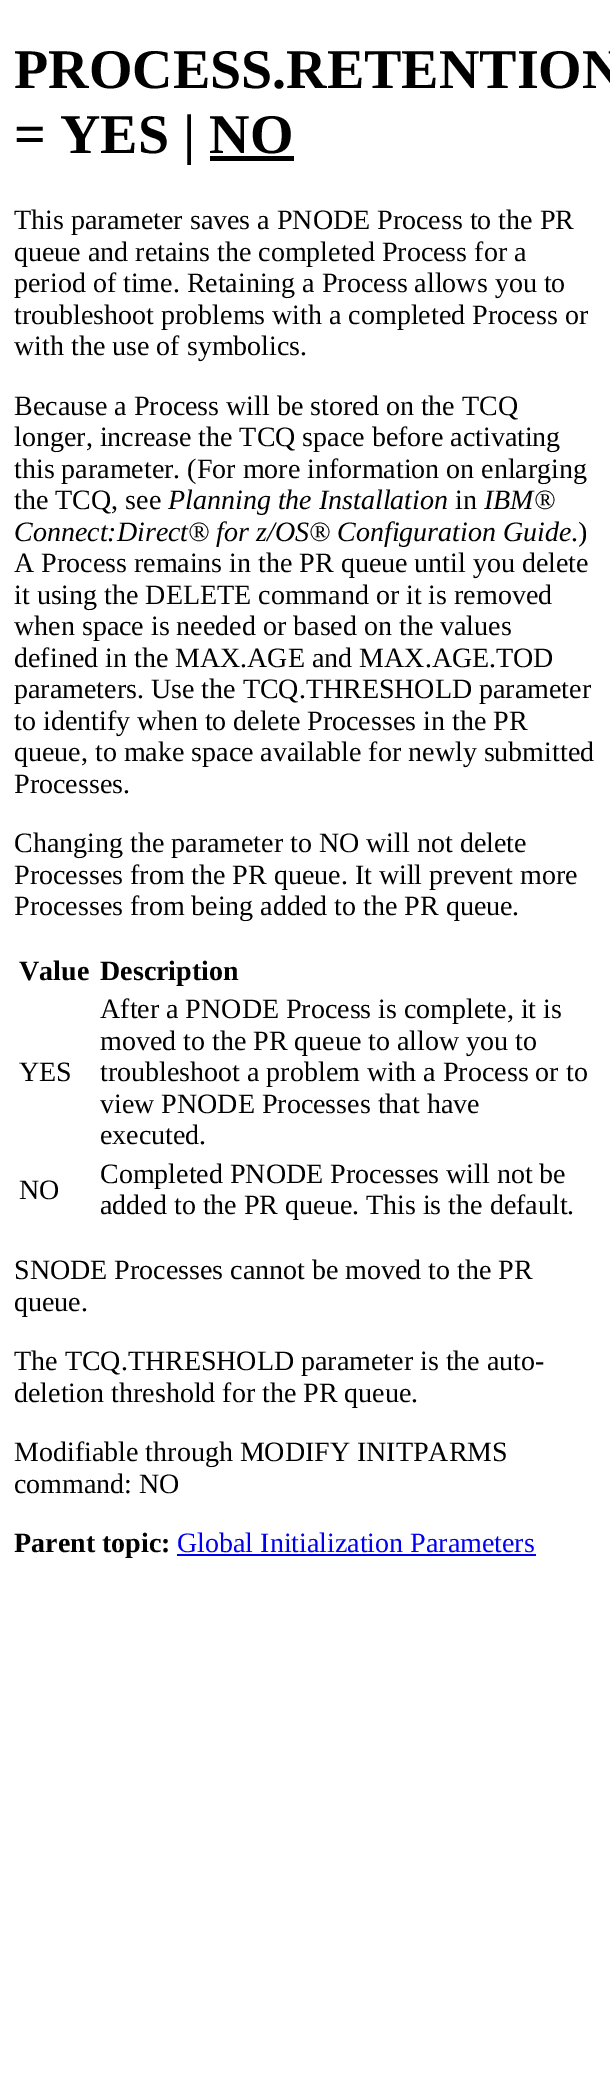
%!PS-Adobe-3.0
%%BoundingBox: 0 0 610 2084
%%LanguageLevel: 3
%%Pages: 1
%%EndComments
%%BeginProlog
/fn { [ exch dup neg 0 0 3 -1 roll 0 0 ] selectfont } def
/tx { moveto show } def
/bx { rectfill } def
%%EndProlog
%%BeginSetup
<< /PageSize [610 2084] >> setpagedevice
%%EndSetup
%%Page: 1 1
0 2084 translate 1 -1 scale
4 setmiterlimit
1 setgray
0 0 610 2084 bx
/LiberationSerif-Bold 56 fn
0 setgray
(PROCESS.RETENTION) 14 88 tx
(= YES | NO) 14 153 tx
210 156 84 5 bx
/LiberationSerif-Regular 28 fn
(This parameter saves a PNODE Process to the PR) 14 229 tx
(queue and retains the completed Process for a) 14 261 tx
(period of time. Retaining a Process allows you to) 14 292 tx
(troubleshoot problems with a completed Process or) 14 324 tx
(with the use of symbolics.) 14 355 tx
(Because a Process will be stored on the TCQ) 14 415 tx
(longer, increase the TCQ space before activating) 14 446 tx
(this parameter. \(For more information on enlarging) 14 478 tx
(the TCQ, see) 14 509 tx
/LiberationSerif-Italic 28 fn
(Planning the Installation) 168 509 tx
/LiberationSerif-Regular 28 fn
(in) 455 509 tx
/LiberationSerif-Italic 28 fn
(IBM®) 484 509 tx
(Connect:Direct® for z/OS® Configuration Guide) 14 541 tx
/LiberationSerif-Regular 28 fn
(.\)) 571 541 tx
(A Process remains in the PR queue until you delete) 14 572 tx
(it using the DELETE command or it is removed) 14 604 tx
(when space is needed or based on the values) 14 635 tx
(defined in the MAX.AGE and MAX.AGE.TOD) 14 667 tx
(parameters. Use the TCQ.THRESHOLD parameter) 14 698 tx
(to identify when to delete Processes in the PR) 14 730 tx
(queue, to make space available for newly submitted) 14 761 tx
(Processes.) 14 793 tx
(Changing the parameter to NO will not delete) 14 852 tx
(Processes from the PR queue. It will prevent more) 14 884 tx
(Processes from being added to the PR queue.) 14 915 tx
/LiberationSerif-Bold 28 fn
(Value) 19 980 tx
(Description) 100 980 tx
/LiberationSerif-Regular 28 fn
(YES) 19 1081 tx
(After a PNODE Process is complete, it is) 100 1018 tx
(moved to the PR queue to allow you to) 100 1050 tx
(troubleshoot a problem with a Process or to) 100 1081 tx
(view PNODE Processes that have) 100 1113 tx
(executed.) 100 1144 tx
(NO) 19 1199 tx
(Completed PNODE Processes will not be) 100 1183 tx
(added to the PR queue. This is the default.) 100 1214 tx
(SNODE Processes cannot be moved to the PR) 14 1279 tx
(queue.) 14 1311 tx
(The TCQ.THRESHOLD parameter is the auto-) 14 1370 tx
(deletion threshold for the PR queue.) 14 1402 tx
(Modifiable through MODIFY INITPARMS) 14 1461 tx
(command: NO) 14 1493 tx
/LiberationSerif-Bold 28 fn
(Parent topic:) 14 1552 tx
/LiberationSerif-Regular 28 fn
0 0 0.933 setrgbcolor
(Global Initialization Parameters) 177 1552 tx
177 1554 359 2 bx
showpage
%%EOF
